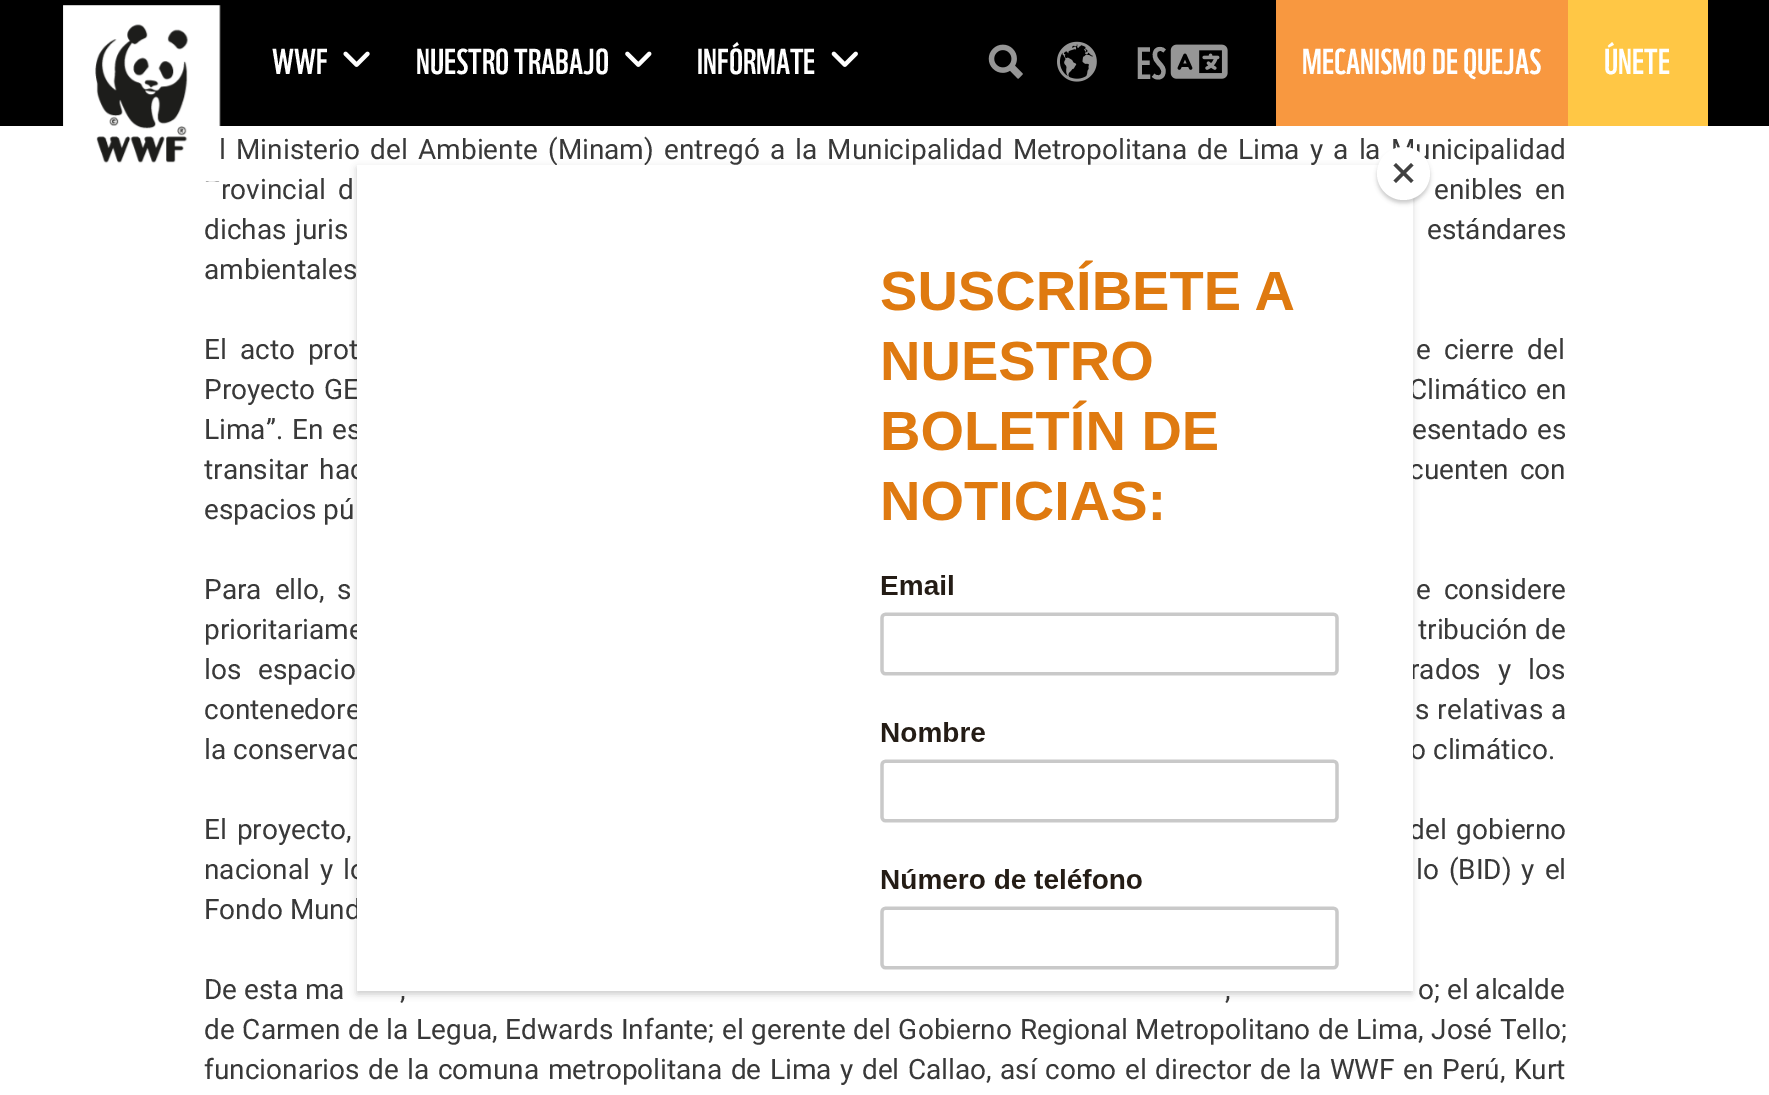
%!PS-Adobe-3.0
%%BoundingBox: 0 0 1769 1095
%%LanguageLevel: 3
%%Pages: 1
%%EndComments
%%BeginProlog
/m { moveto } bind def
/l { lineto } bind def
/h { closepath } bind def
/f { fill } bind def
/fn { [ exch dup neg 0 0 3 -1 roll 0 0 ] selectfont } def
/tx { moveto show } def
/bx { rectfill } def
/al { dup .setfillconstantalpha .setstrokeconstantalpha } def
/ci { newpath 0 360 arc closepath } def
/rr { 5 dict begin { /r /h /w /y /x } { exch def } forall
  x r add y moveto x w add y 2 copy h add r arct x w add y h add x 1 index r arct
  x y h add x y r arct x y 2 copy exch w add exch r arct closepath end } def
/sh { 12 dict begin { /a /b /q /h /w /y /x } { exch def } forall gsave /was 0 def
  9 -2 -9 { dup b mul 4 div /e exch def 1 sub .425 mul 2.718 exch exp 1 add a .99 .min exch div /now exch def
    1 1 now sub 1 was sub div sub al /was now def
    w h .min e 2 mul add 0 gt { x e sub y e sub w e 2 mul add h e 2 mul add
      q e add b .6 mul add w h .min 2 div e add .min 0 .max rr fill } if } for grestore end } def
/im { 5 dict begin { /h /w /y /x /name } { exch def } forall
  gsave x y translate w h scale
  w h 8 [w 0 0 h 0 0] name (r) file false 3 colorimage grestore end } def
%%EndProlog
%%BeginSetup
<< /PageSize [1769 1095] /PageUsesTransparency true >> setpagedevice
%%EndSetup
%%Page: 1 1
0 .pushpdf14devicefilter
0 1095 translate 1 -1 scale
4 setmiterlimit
1 setgray
0 0 1769 1095 bx
0 setgray
0 0 1769 126 bx
(image0.raw) 63 5 158 177 im
/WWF-Regular 35 fn
1 setgray
(WWF) 272 74 tx
(image1.raw) 343 51 27 16 im
(NUESTRO TRABAJO) 416 74 tx
(image2.raw) 625 51 27 16 im
(INFÓRMATE) 697 74 tx
(image3.raw) 831 51 27 16 im
(image4.raw) 988 44 35 35 im
(image5.raw) 1057 41 40 41 im
/WWF-Regular 44 fn
0.588 setgray
(ES) 1136 79 tx
(image6.raw) 1170 44 58 35 im
0.973 0.596 0.251 setrgbcolor
1276 0 292 126 bx
/WWF-Regular 35 fn
1 setgray
(MECANISMO DE QUEJAS) 1302 74 tx
1 0.78 0.271 setrgbcolor
1568 0 140 126 bx
1 setgray
(ÚNETE) 1604 74 tx
/Roboto-Regular 28 fn
0.224 setgray
219 159 m 3.25 0 32 (l Ministerio del Ambiente \(Minam\) entregó a la Municipalidad Metropolitana de Lima y a la Municipalidad) widthshow
221 199 m 5 0 32 (rovincial d) widthshow
1434 199 m 5 0 32 (enibles en) widthshow
204 239 m 2 0 32 (dichas juris) widthshow
1427 239 m 2 0 32 (estándares) widthshow
(ambientales) 204 279 tx
204 359 m 6 0 32 (El acto prot) widthshow
1416 359 m 6 0 32 (e cierre del) widthshow
204 399 m 2 0 32 (Proyecto GE) widthshow
1409 399 m 2 0 32 (Climático en) widthshow
204 439 m 2 0 32 (Lima”. En es) widthshow
1412 439 m 2 0 32 (esentado es) widthshow
204 479 m 4 0 32 (transitar hac) widthshow
1409 479 m 4 0 32 (cuenten con) widthshow
(espacios pú) 204 519 tx
204 599 m 6 0 32 (Para ello, s) widthshow
1416 599 m 6 0 32 (e considere) widthshow
204 639 m 1 0 32 (prioritariame) widthshow
1418 639 m 1 0 32 (tribución de) widthshow
204 679 m 10 0 32 (los espacio) widthshow
1410 679 m 10 0 32 (rados y los) widthshow
204 719 m 1 0 32 (contenedore) widthshow
1415 719 m 1 0 32 (s relativas a) widthshow
(la conservac) 204 759 tx
(o climático.) 1410 759 tx
204 839 m 3 0 32 (El proyecto,) widthshow
1409 839 m 3 0 32 (del gobierno) widthshow
204 879 m 3 0 32 (nacional y lo) widthshow
1416 879 m 3 0 32 (lo \(BID\) y el) widthshow
(Fondo Mund) 204 919 tx
(De esta ma) 204 999 tx
(,) 400 999 tx
(,) 1225 999 tx
(o; el alcalde) 1418 999 tx
204 1039 m 0.75 0 32 (de Carmen de la Legua, Edwards Infante; el gerente del Gobierno Regional Metropolitano de Lima, José Tello;) widthshow
204 1079 m 1.6 0 32 (funcionarios de la comuna metropolitana de Lima y del Callao, así como el director de la WWF en Perú, Kurt) widthshow
0 setgray
357 168 1055 826 0 3.5 0.2 sh
(image7.raw) 357 165 1056 826 im
1377 151 53 52 26 2 0.2 sh
1 setgray
1403.5 173.5 26.5 ci f
0.255 setgray
1411 163 m 1413.5 165.5 l 1396 183 l 1393.5 180.5 l h f
1393.5 165.5 m 1396 163 l 1413.5 180.5 l 1411 183 l h f
.poppdf14devicefilter showpage
%%EOF
